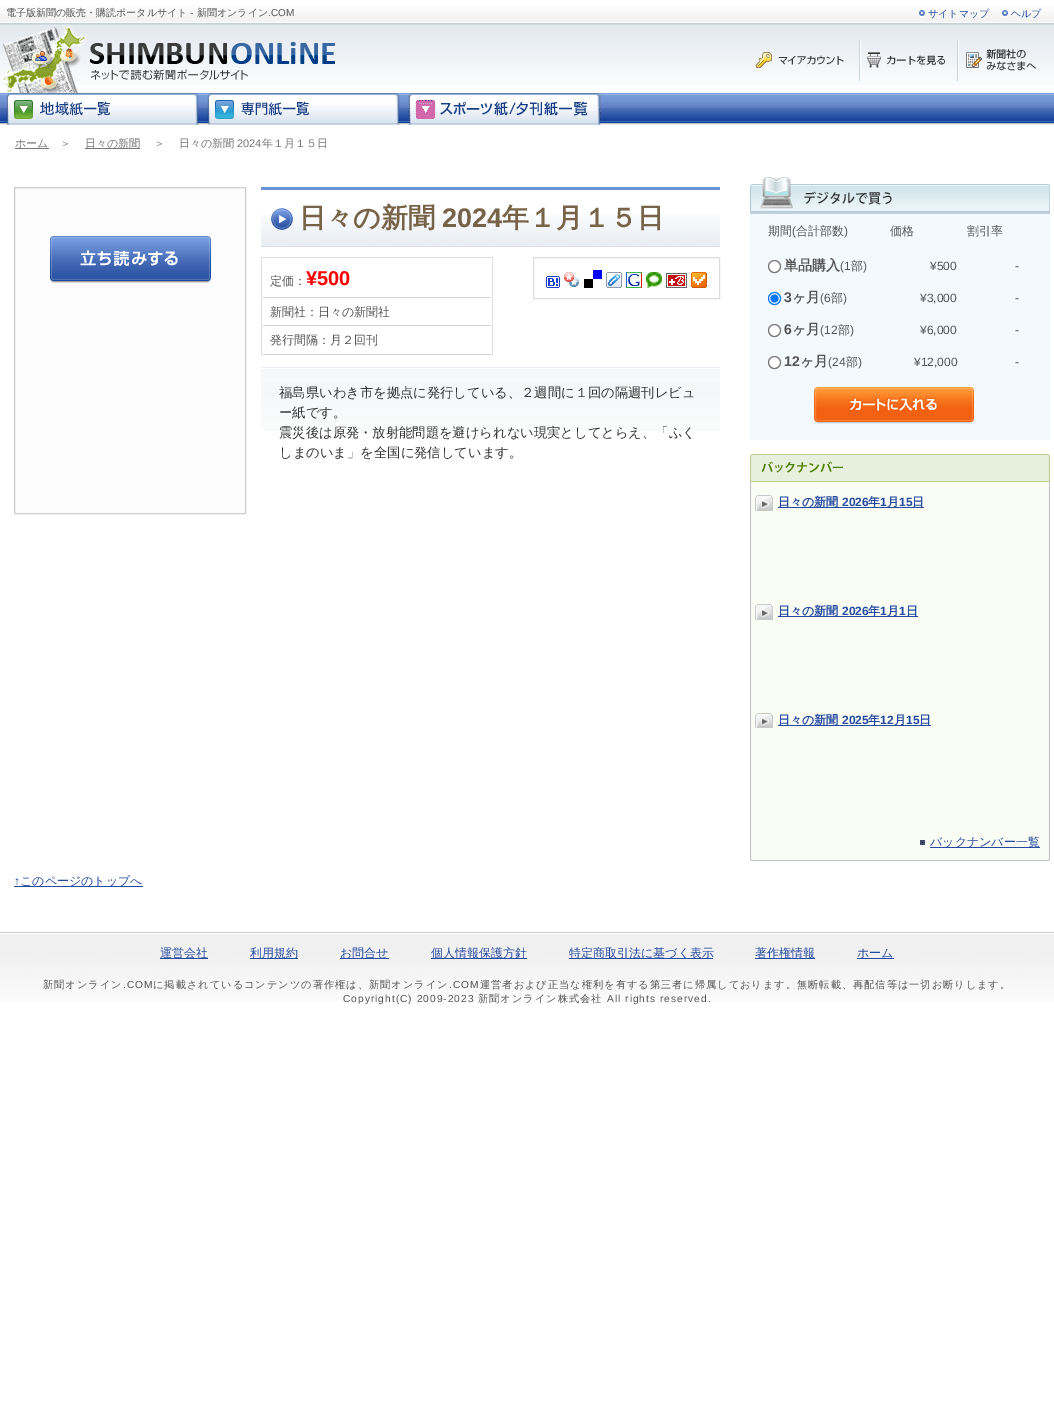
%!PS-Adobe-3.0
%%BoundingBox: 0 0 1054 1427
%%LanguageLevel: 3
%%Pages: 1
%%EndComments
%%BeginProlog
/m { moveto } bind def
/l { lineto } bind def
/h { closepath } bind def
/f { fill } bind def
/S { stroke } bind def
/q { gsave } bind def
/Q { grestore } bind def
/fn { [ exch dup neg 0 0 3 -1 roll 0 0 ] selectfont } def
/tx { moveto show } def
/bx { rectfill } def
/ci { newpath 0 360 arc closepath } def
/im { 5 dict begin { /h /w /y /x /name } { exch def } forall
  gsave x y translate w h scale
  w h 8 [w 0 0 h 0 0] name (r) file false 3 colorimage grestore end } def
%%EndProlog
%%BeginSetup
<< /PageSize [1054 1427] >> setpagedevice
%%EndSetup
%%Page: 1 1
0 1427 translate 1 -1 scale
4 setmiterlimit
1 setgray
0 0 1054 1427 bx
(image0.raw) 0 23 1054 62 im
(image1.raw) 0 0 1054 23 im
/WenQuanYiZenHei-Medium 10 fn
0.333 setgray
(電子版新聞の販売・購読ポータルサイト) 6 16 tx
/LiberationSans-Regular 10 fn
(-) 190 16 tx
/WenQuanYiZenHei-Medium 10 fn
(新聞オンライン) 197 16 tx
/LiberationSans-Regular 10 fn
(.COM) 268 16 tx
(image2.raw) 918 10 7 7 im
/WenQuanYiZenHei-Medium 10 fn
0.145 0.29 0.627 setrgbcolor
(サイトマップ) 928 17 tx
(image2.raw) 1001 10 7 7 im
(ヘルプ) 1011 17 tx
(image3.raw) 2 25 333 68 im
(image4.raw) 756 52 88 16 im
(image5.raw) 859 40 86 41 im
(image6.raw) 957 40 79 41 im
(image7.raw) 0 93 1054 32 im
(image8.raw) 6 93 193 32 im
(image9.raw) 207 93 193 32 im
(image10.raw) 408 93 193 32 im
0.467 setgray
15 148 34 1 bx
/WenQuanYiZenHei-Medium 11 fn
(ホーム) 15 147 tx
(＞) 60 147 tx
85 148 55 1 bx
(日々の新聞) 85 147 tx
(＞) 154 147 tx
(日々の新聞) 179 147 tx
/LiberationSans-Regular 11 fn
(2024) 237 147 tx
/WenQuanYiZenHei-Medium 11 fn
(年１月１５日) 262 147 tx
0.988 setgray
14.5 187.5 m 245.5 187.5 l 245.5 513.5 l 14.5 513.5 l h q f Q
0.8 setgray
S
(image11.raw) 50 236 161 47 im
(image12.raw) 261 214 459 32 im
0.427 0.573 0.835 setrgbcolor
261 187 459 3 bx
0.867 setgray
261 246 459 1 bx
(image13.raw) 271 208 22 22 im
/WenQuanYiZenHei-Bold 27 fn
0.467 0.388 0.278 setrgbcolor
(日々の新聞) 299 227 tx
/LiberationSans-Bold 27 fn
(2024) 442 227 tx
/WenQuanYiZenHei-Bold 27 fn
(年１月１５日) 502 227 tx
0.871 setgray
261 257 232 1 bx
492 257 1 99 bx
261 257 1 99 bx
0.827 setgray
263 297 228 1 bx
/WenQuanYiZenHei-Medium 12 fn
0.333 setgray
(定価：) 270 285 tx
/LiberationSans-Bold 20 fn
1 0 0 setrgbcolor
(¥500) 306 285 tx
0.827 setgray
263 325 228 1 bx
/WenQuanYiZenHei-Medium 12 fn
0.333 setgray
(新聞社：日々の新聞社) 270 316 tx
0.827 setgray
263 354 228 1 bx
0.333 setgray
(発行間隔：月２回刊) 270 344 tx
0.867 setgray
533.5 257.5 186 41 rectstroke
(image14.raw) 546 276 14 12 im
(image15.raw) 564 272 15 15 im
(image16.raw) 584 270 18 18 im
(image17.raw) 606 272 16 16 im
(image18.raw) 626 272 16 16 im
(image19.raw) 646 272 16 16 im
(image20.raw) 666 273 21 15 im
(image21.raw) 691 272 16 16 im
(image22.raw) 261 367 459 64 im
/WenQuanYiZenHei-Medium 13.3 fn
0.2 setgray
(福島県いわき市を拠点に発行している、２週間に１回の隔週刊レビュ) 279 397 tx
(ー紙です。) 279 417 tx
(震災後は原発・放射能問題を避けられない現実としてとらえ、「ふく) 279 437 tx
(しまのいま」を全国に発信しています。) 279 457 tx
/LiberationSans-Regular 12 fn
0.145 0.29 0.627 setrgbcolor
(↑) 14 885 tx
14 886 129 1 bx
/WenQuanYiZenHei-Medium 12 fn
(このページのトップへ) 20 885 tx
0.953 0.976 0.992 setrgbcolor
750 214 300 226 bx
0.749 0.82 0.871 setrgbcolor
750 212 300 2 bx
(image23.raw) 750 177 300 35 im
0.333 setgray
(期間) 768 235 tx
/LiberationSans-Regular 12 fn
(\() 792 235 tx
/WenQuanYiZenHei-Medium 12 fn
(合計部数) 796 235 tx
/LiberationSans-Regular 12 fn
(\)) 844 235 tx
/WenQuanYiZenHei-Medium 12 fn
(価格) 890 235 tx
(割引率) 967 235 tx
1 setgray
774.5 266.5 6 ci q f Q
0.463 setgray
S
/WenQuanYiZenHei-Bold 14 fn
0.333 setgray
(単品購入) 784 270 tx
/LiberationSans-Regular 12 fn
(\(1) 840 270 tx
/WenQuanYiZenHei-Medium 12 fn
(部) 851 270 tx
/LiberationSans-Regular 12 fn
(\)) 863 270 tx
(¥500) 930 270 tx
(-) 1015 270 tx
1 setgray
774.5 298.5 6 ci q f Q
0 0.459 1 setrgbcolor
S
774.5 298.5 4 ci f
/LiberationSans-Bold 14 fn
0.333 setgray
(3) 784 302 tx
/WenQuanYiZenHei-Bold 14 fn
(ヶ月) 792 302 tx
/LiberationSans-Regular 12 fn
(\(6) 820 302 tx
/WenQuanYiZenHei-Medium 12 fn
(部) 831 302 tx
/LiberationSans-Regular 12 fn
(\)) 843 302 tx
(¥3,000) 920 302 tx
(-) 1015 302 tx
1 setgray
774.5 330.5 6 ci q f Q
0.463 setgray
S
/LiberationSans-Bold 14 fn
0.333 setgray
(6) 784 334 tx
/WenQuanYiZenHei-Bold 14 fn
(ヶ月) 792 334 tx
/LiberationSans-Regular 12 fn
(\(12) 820 334 tx
/WenQuanYiZenHei-Medium 12 fn
(部) 838 334 tx
/LiberationSans-Regular 12 fn
(\)) 850 334 tx
(¥6,000) 920 334 tx
(-) 1015 334 tx
1 setgray
774.5 362.5 6 ci q f Q
0.463 setgray
S
/LiberationSans-Bold 14 fn
0.333 setgray
(12) 784 366 tx
/WenQuanYiZenHei-Bold 14 fn
(ヶ月) 800 366 tx
/LiberationSans-Regular 12 fn
(\(24) 828 366 tx
/WenQuanYiZenHei-Medium 12 fn
(部) 846 366 tx
/LiberationSans-Regular 12 fn
(\)) 858 366 tx
(¥12,000) 914 366 tx
(-) 1015 366 tx
(image24.raw) 814 387 160 37 im
(image25.raw) 750 482 300 379 im
(image26.raw) 750 454 300 28 im
(image27.raw) 755 495 18 16 im
0.145 0.29 0.627 setrgbcolor
778 507 146 1 bx
/WenQuanYiZenHei-Bold 12 fn
(日々の新聞) 778 506 tx
/LiberationSans-Bold 12 fn
(2026) 842 506 tx
/WenQuanYiZenHei-Bold 12 fn
(年) 868 506 tx
/LiberationSans-Bold 12 fn
(1) 880 506 tx
/WenQuanYiZenHei-Bold 12 fn
(月) 887 506 tx
/LiberationSans-Bold 12 fn
(15) 899 506 tx
/WenQuanYiZenHei-Bold 12 fn
(日) 912 506 tx
(image27.raw) 755 604 18 16 im
778 616 140 1 bx
(日々の新聞) 778 615 tx
/LiberationSans-Bold 12 fn
(2026) 842 615 tx
/WenQuanYiZenHei-Bold 12 fn
(年) 868 615 tx
/LiberationSans-Bold 12 fn
(1) 880 615 tx
/WenQuanYiZenHei-Bold 12 fn
(月) 887 615 tx
/LiberationSans-Bold 12 fn
(1) 899 615 tx
/WenQuanYiZenHei-Bold 12 fn
(日) 906 615 tx
(image28.raw) 755 713 18 15 im
778 725 153 1 bx
(日々の新聞) 778 724 tx
/LiberationSans-Bold 12 fn
(2025) 842 724 tx
/WenQuanYiZenHei-Bold 12 fn
(年) 868 724 tx
/LiberationSans-Bold 12 fn
(12) 880 724 tx
/WenQuanYiZenHei-Bold 12 fn
(月) 894 724 tx
/LiberationSans-Bold 12 fn
(15) 906 724 tx
/WenQuanYiZenHei-Bold 12 fn
(日) 919 724 tx
(image29.raw) 920 840 5 5 im
930 847 110 1 bx
/WenQuanYiZenHei-Medium 12 fn
(バックナンバー一覧) 930 846 tx
(image30.raw) 0 934 1054 68 im
0.8 setgray
0 932 1054 1 bx
0.145 0.29 0.627 setrgbcolor
160 958 48 1 bx
(運営会社) 160 957 tx
250 958 48 1 bx
(利用規約) 250 957 tx
340 958 49 1 bx
(お問合せ) 340 957 tx
431 958 96 1 bx
(個人情報保護方針) 431 957 tx
569 958 144 1 bx
(特定商取引法に基づく表示) 569 957 tx
755 958 60 1 bx
(著作権情報) 755 957 tx
857 958 37 1 bx
(ホーム) 857 957 tx
/WenQuanYiZenHei-Medium 10.2 fn
0.333 setgray
43 988 m 1 0 (新聞オンライン) ashow
/LiberationSans-Regular 10.2 fn
123 988 m 1 0 (.COM) ashow
/WenQuanYiZenHei-Medium 10.2 fn
153 988 m 1 0 (に掲載されているコンテンツの著作権は、新聞オンライン) ashow
/LiberationSans-Regular 10.2 fn
449 988 m 1 0 (.COM) ashow
/WenQuanYiZenHei-Medium 10.2 fn
480 988 m 1 0 (運営者および正当な権利を有する第三者に帰属しております。無断転載、再配信等は一切お断りします。) ashow
/LiberationSans-Regular 10.2 fn
343 1002 m 1 0 (Copyright\(C\) 2009-2023) ashow
/WenQuanYiZenHei-Medium 10.2 fn
478 1002 m 1 0 (新聞オンライン株式会社) ashow
/LiberationSans-Regular 10.2 fn
607 1002 m 1 0 (All rights reserved.) ashow
showpage
%%EOF
